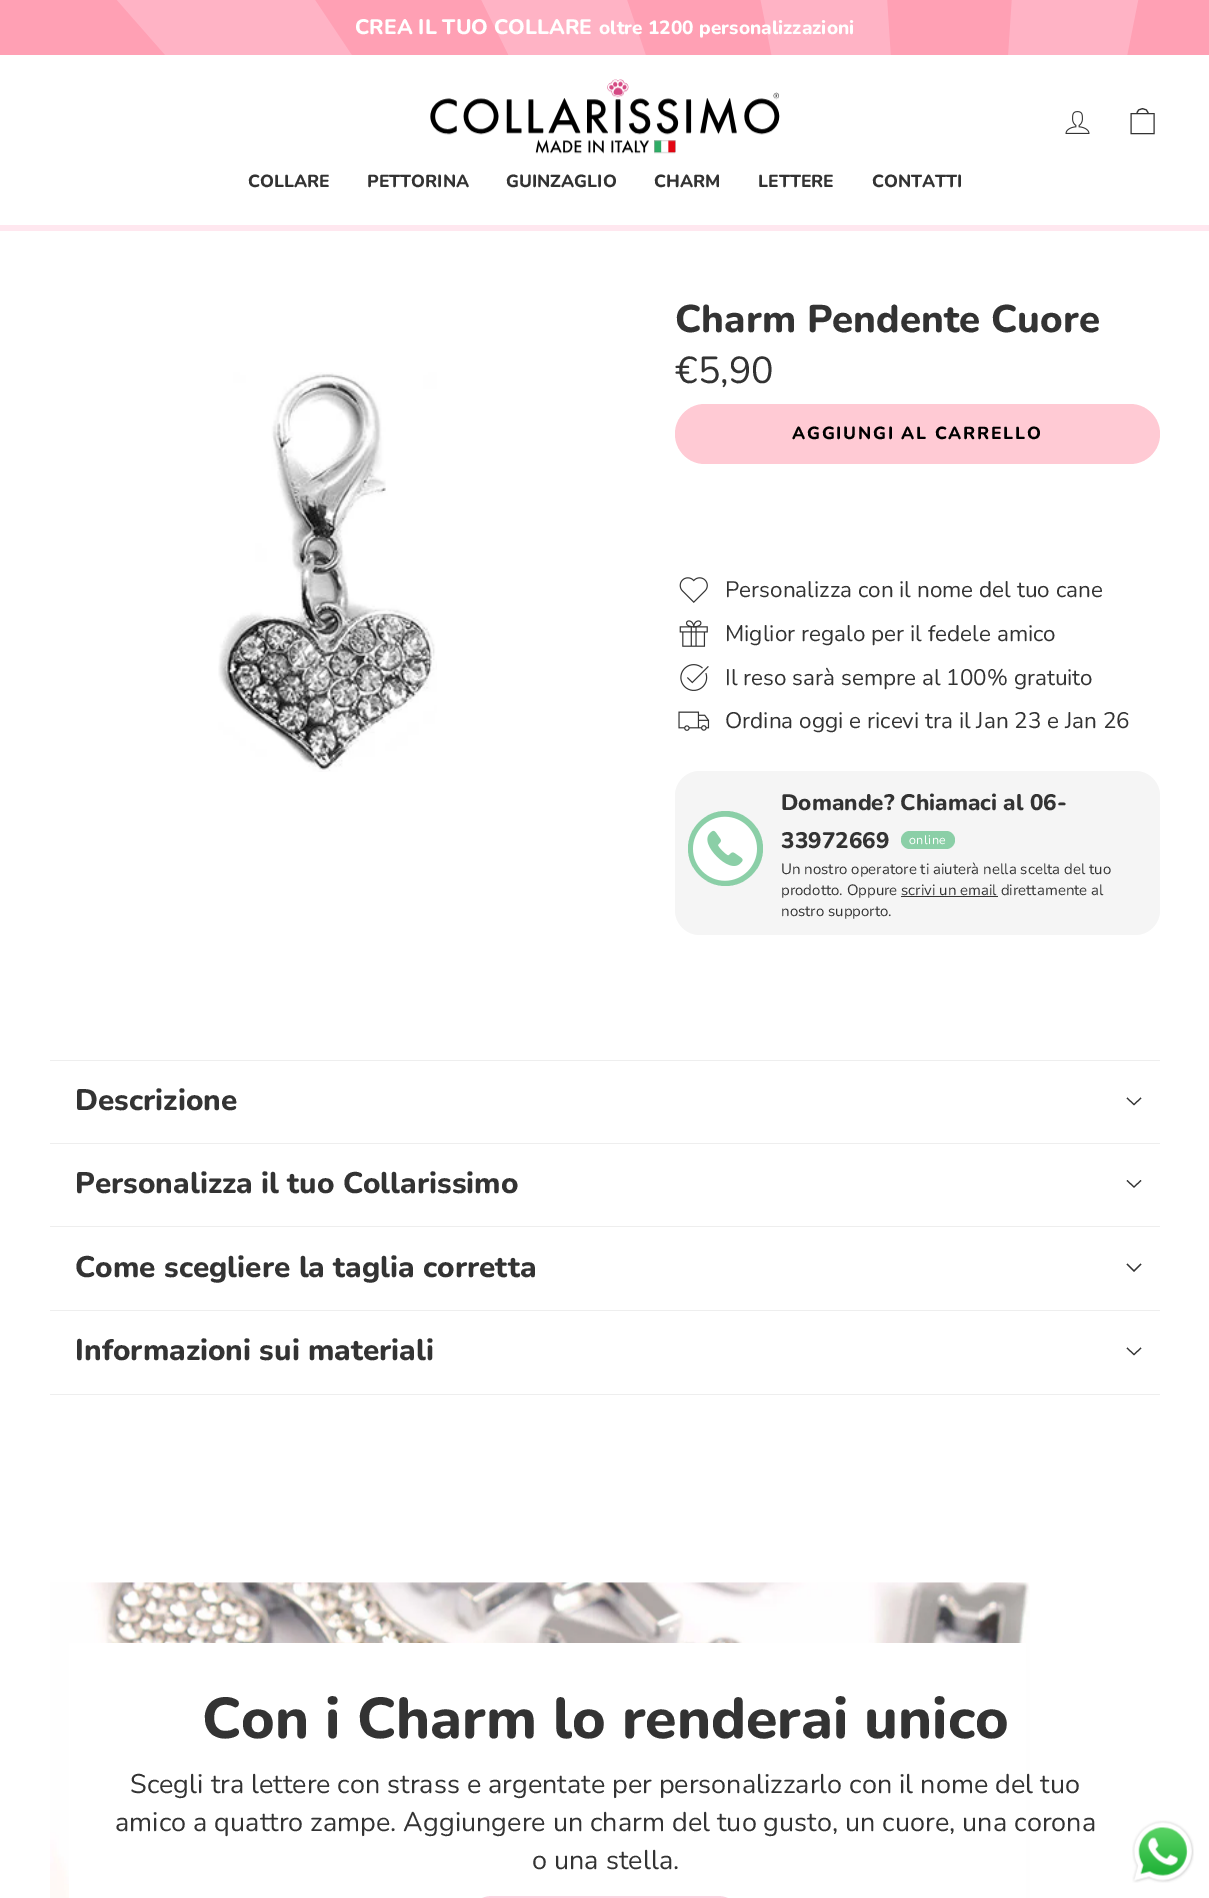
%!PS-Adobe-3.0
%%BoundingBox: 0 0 1209 1898
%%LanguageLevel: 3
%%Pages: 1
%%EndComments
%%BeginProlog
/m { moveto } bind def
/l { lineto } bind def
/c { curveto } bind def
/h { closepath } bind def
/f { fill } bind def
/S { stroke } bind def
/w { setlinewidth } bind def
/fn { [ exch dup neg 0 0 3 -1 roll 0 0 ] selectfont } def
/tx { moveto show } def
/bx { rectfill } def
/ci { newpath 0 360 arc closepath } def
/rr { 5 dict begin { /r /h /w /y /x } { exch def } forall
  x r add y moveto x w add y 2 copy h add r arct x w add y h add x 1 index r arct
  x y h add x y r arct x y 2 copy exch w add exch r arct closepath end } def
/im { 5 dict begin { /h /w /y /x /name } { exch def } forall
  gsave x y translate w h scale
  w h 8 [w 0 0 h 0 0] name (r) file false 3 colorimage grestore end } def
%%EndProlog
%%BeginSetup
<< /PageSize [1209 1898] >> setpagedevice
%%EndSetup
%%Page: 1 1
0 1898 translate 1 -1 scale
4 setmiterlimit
1 setgray
0 0 1209 1898 bx
(image0.raw) 0 0 1209 55 im
/Nunito-ExtraBold 21 fn
(CREA IL TUO COLLARE) 355 34 tx
/Nunito-ExtraBold 19.1 fn
(oltre 1200 personalizzazioni) 599 34 tx
1 0.906 0.937 setrgbcolor
0 225 1209 6 bx
(image1.raw) 430 79 350 75 im
(image2.raw) 1065 111 25 23 im
0.2 setgray
1.1 w
1131 113.5 m 1154 113.5 l 1154 133.5 l 1131 133.5 l h 1137 113.5 m 1137 107 1148 107 1148 113.5 c S
/Nunito-ExtraBold 17.5 fn
(COLLARE) 248 187 tx
(PETTORINA) 367 187 tx
(GUINZAGLIO) 506 187 tx
(CHARM) 654 187 tx
(LETTERE) 758 187 tx
(CONTATTI) 872 187 tx
(image3.raw) 218 372 219 400 im
/Nunito-ExtraBold 38.5 fn
(Charm Pendente Cuore) 675 332 tx
/Nunito-Regular 37.5 fn
(€5,90) 675 383 tx
1 0.792 0.831 setrgbcolor
675 404 485 60 30 rr f
/Nunito-ExtraBold 17.5 fn
0 setgray
792 439 m 1.75 0 (AGGIUNGI AL CARRELLO) ashow
(image4.raw) 679 577 29 26 im
/Nunito-Regular 22.5 fn
0.2 setgray
(Personalizza con il nome del tuo cane) 725 597 tx
(image5.raw) 679 620 29 27 im
(Miglior regalo per il fedele amico) 725 641 tx
(image6.raw) 680 664 29 27 im
(Il reso sarà sempre al 100% gratuito) 725 685 tx
(image7.raw) 678 711 32 20 im
(Ordina oggi e ricevi tra il Jan 23 e Jan 26) 725 728 tx
0.961 setgray
675 771 485 164 25 rr f
0.545 0.812 0.655 setrgbcolor
725.5 848.5 37.5 ci f
(image8.raw) 693 816 64 65 im
/Nunito-ExtraBold 22.5 fn
0.2 setgray
(Domande? Chiamaci al 06-) 781 810 tx
(33972669) 781 848 tx
0.545 0.812 0.655 setrgbcolor
901 831 54 18 9 rr f
/Nunito-Regular 12.5 fn
1 setgray
909 844 m 0.5 0 (online) ashow
/Nunito-Regular 15 fn
0.2 setgray
(Un nostro operatore ti aiuterà nella scelta del tuo) 781 874 tx
(prodotto. Oppure scrivi un email direttamente al) 781 895 tx
901 896 97 1 bx
(nostro supporto.) 781 916 tx
0.933 setgray
50 1143 1110 1 bx
50 1060 1110 1 bx
/Nunito-ExtraBold 29.75 fn
0.2 setgray
(Descrizione) 75 1110 tx
1127 1098 m 1134 1104.5 l 1141 1098 l S
0.933 setgray
50 1226 1110 1 bx
0.2 setgray
(Personalizza il tuo Collarissimo) 75 1193 tx
1127 1180.5 m 1134 1187 l 1141 1180.5 l S
0.933 setgray
50 1310 1110 1 bx
0.2 setgray
(Come scegliere la taglia corretta) 75 1277 tx
1127 1264 m 1134 1271 l 1141 1264 l S
0.933 setgray
50 1394 1110 1 bx
0.2 setgray
(Informazioni sui materiali) 75 1360 tx
1127 1348 m 1134 1354.5 l 1141 1348 l S
(image9.raw) 50 1582 980 316 im
1 setgray
69 1643 957 255 bx
/Nunito-ExtraBold 57.4 fn
0.2 setgray
(Con i Charm lo renderai unico) 202 1738 tx
/Nunito-Regular 27 fn
(Scegli tra lettere con strass e argentate per personalizzarlo con il nome del tuo) 130 1793 tx
(amico a quattro zampe. Aggiungere un charm del tuo gusto, un cuore, una corona) 115 1831 tx
(o una stella.) 532 1869 tx
0.98 0.831 0.882 setrgbcolor
466 1896 278 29 26.5 rr f
(image10.raw) 1132 1820 62 63 im
showpage
%%EOF
